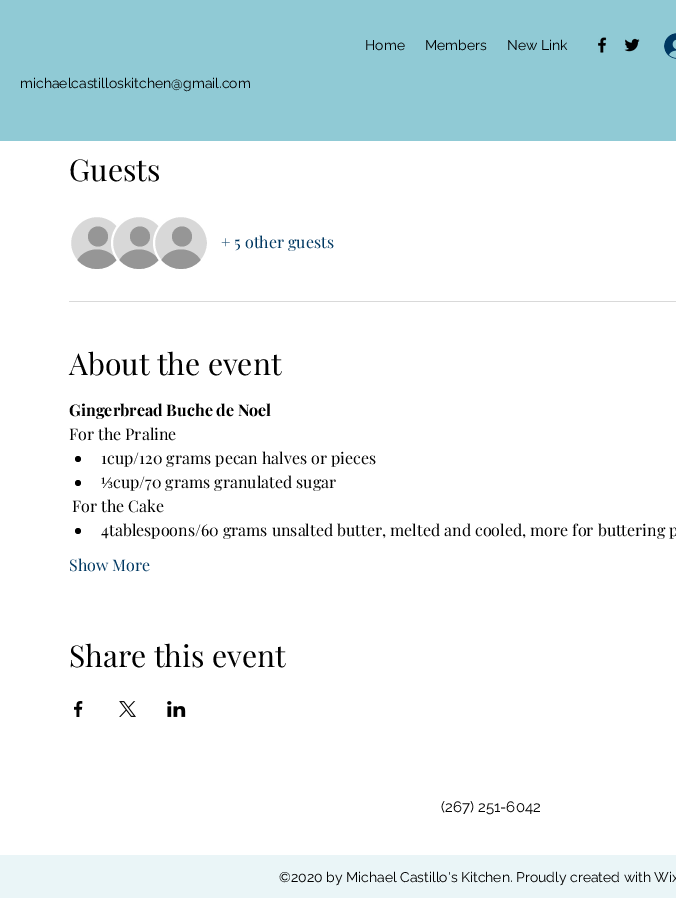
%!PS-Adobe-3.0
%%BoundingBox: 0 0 676 898
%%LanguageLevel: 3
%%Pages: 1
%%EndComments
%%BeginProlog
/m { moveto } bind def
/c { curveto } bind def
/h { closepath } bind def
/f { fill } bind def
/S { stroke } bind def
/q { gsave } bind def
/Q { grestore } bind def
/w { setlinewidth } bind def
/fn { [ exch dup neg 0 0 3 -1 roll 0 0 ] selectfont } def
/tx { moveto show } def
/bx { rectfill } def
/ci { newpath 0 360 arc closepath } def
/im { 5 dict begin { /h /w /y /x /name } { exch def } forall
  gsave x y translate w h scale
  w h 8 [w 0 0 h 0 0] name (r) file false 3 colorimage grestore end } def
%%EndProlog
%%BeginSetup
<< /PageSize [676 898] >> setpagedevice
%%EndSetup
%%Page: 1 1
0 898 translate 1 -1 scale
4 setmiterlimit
1 setgray
0 0 676 898 bx
0.565 0.792 0.835 setrgbcolor
0 0 676 141 bx
/Raleway-Regular 14 fn
0 setgray
(Home) 365 50 tx
(Members) 425 50 tx
(New Link) 507 50 tx
(image0.raw) 598 37 9 16 im
(image1.raw) 624 38 16 14 im
(image2.raw) 664 33 12 26 im
(michaelcastilloskitchen@gmail.com) 20 88 tx
/PlayfairDisplay-Regular 30 fn
(Guests) 69 181 tx
0.847 setgray
97 243 27 ci q f Q
1 setgray
2 w
S
0.588 setgray
98 236.5 10 ci f
116.5 260 m 106.5 272 87.5 272 77.5 260 c 86 246 108 246 116.5 260 c h f
0.847 setgray
139 243 27 ci q f Q
1 setgray
S
0.588 setgray
140 236.5 10 ci f
158.5 260 m 148.5 272 129.5 272 119.5 260 c 128 246 150 246 158.5 260 c h f
0.847 setgray
181 243 27 ci q f Q
1 setgray
S
0.588 setgray
182 236.5 10 ci f
200.5 260 m 190.5 272 171.5 272 161.5 260 c 170 246 192 246 200.5 260 c h f
/PlayfairDisplay-Regular 16 fn
0 0.22 0.384 setrgbcolor
(+ 5 other guests) 221 248 tx
0.851 setgray
69 301 607 1 bx
/PlayfairDisplay-Regular 30 fn
0 setgray
(About the event) 69 375 tx
/PlayfairDisplay-Bold 16 fn
(Gingerbread Buche de Noel) 69 416 tx
/PlayfairDisplay-Regular 16 fn
(For the Praline) 69 440 tx
78 459 3 ci f
(1cup/120 grams pecan halves or pieces) 101 464 tx
78 483 3 ci f
/LiberationSerif-Regular 16 fn
(⅓) 101 488 tx
/PlayfairDisplay-Regular 16 fn
(cup/70 grams granulated sugar) 113 488 tx
(For the Cake) 72 512 tx
78 531 3 ci f
(4tablespoons/60 grams unsalted butter, melted and cooled, more for buttering p) 101 536 tx
0 0.22 0.384 setrgbcolor
(Show More) 69 571 tx
/PlayfairDisplay-Regular 30 fn
0 setgray
(Share this event) 69 667 tx
(image3.raw) 74 701 9 16 im
(image4.raw) 119 701 17 16 im
(image5.raw) 167 701 19 16 im
/Raleway-Regular 15 fn
(\(267\) 251-6042) 441 812 tx
0.918 0.961 0.969 setrgbcolor
0 855 676 43 bx
/Raleway-Regular 14 fn
0 setgray
(©2020 by Michael Castillo's Kitchen. Proudly created with Wix) 279 882 tx
showpage
%%EOF
